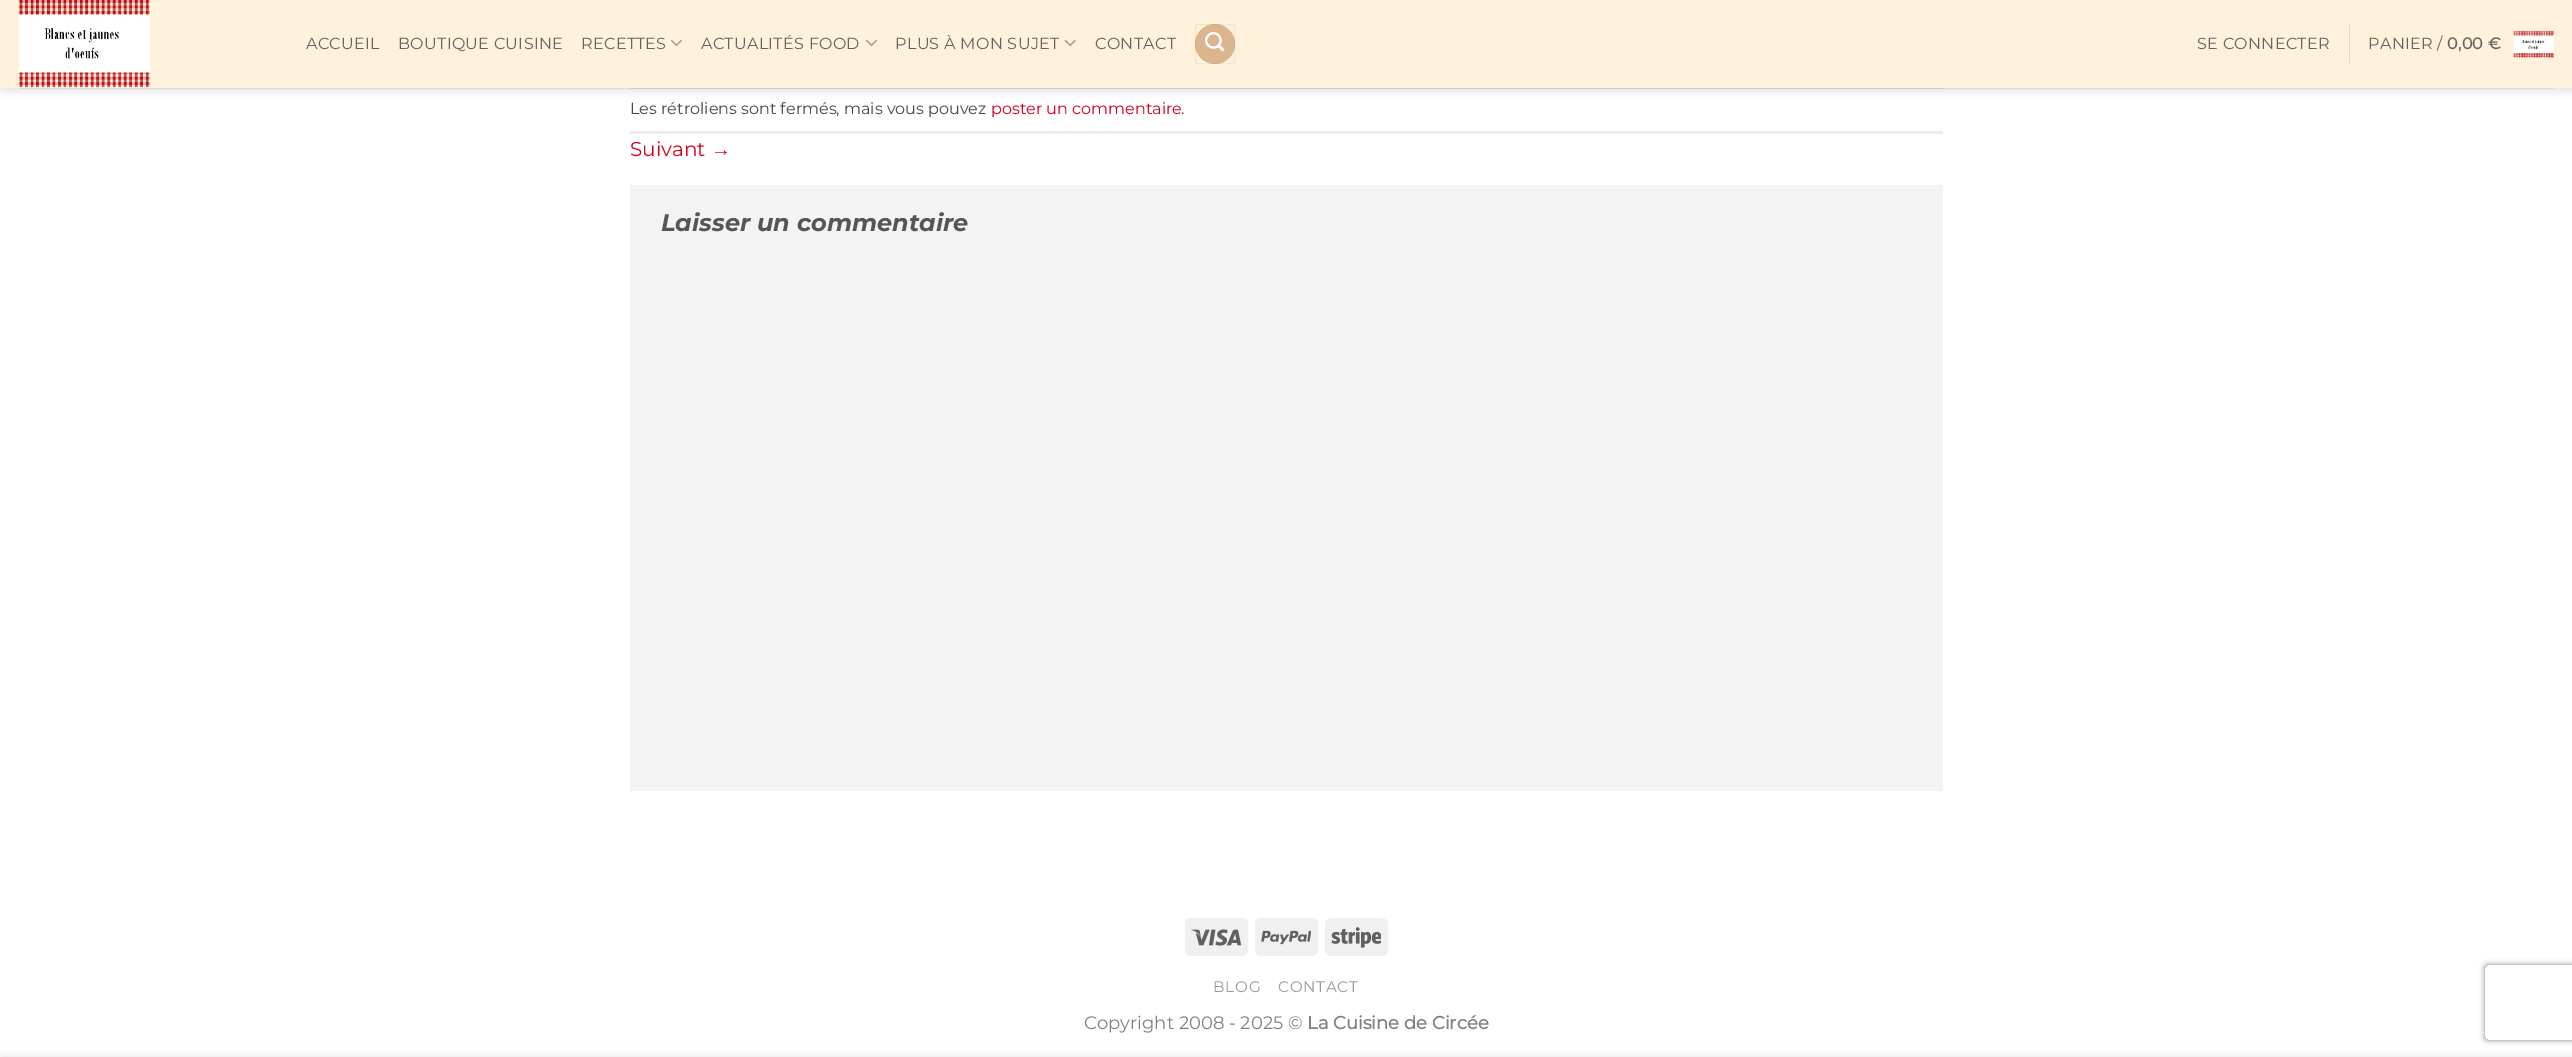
%!PS-Adobe-3.0
%%BoundingBox: 0 0 2572 1057
%%LanguageLevel: 3
%%Pages: 1
%%EndComments
%%BeginProlog
/m { moveto } bind def
/l { lineto } bind def
/c { curveto } bind def
/h { closepath } bind def
/f { fill } bind def
/q { gsave } bind def
/Q { grestore } bind def
/fn { [ exch dup neg 0 0 3 -1 roll 0 0 ] selectfont } def
/tx { moveto show } def
/bx { rectfill } def
/al { dup .setfillconstantalpha .setstrokeconstantalpha } def
/ci { newpath 0 360 arc closepath } def
/rr { 5 dict begin { /r /h /w /y /x } { exch def } forall
  x r add y moveto x w add y 2 copy h add r arct x w add y h add x 1 index r arct
  x y h add x y r arct x y 2 copy exch w add exch r arct closepath end } def
/sh { 12 dict begin { /a /b /q /h /w /y /x } { exch def } forall gsave /was 0 def
  9 -2 -9 { dup b mul 4 div /e exch def 1 sub .425 mul 2.718 exch exp 1 add a .99 .min exch div /now exch def
    1 1 now sub 1 was sub div sub al /was now def
    w h .min e 2 mul add 0 gt { x e sub y e sub w e 2 mul add h e 2 mul add
      q e add b .6 mul add w h .min 2 div e add .min 0 .max rr fill } if } for grestore end } def
/im { 5 dict begin { /h /w /y /x /name } { exch def } forall
  gsave x y translate w h scale
  w h 8 [w 0 0 h 0 0] name (r) file false 3 colorimage grestore end } def
%%EndProlog
%%BeginSetup
<< /PageSize [2572 1057] /PageUsesTransparency true >> setpagedevice
%%EndSetup
%%Page: 1 1
0 .pushpdf14devicefilter
0 1057 translate 1 -1 scale
4 setmiterlimit
1 setgray
0 0 2572 1057 bx
0.925 setgray
630 88 1313 1 bx
0 setgray
1 1 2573 88 0 6 0.15 sh
1 0.945 0.859 setrgbcolor
0 0 2572 88 bx
(image0.raw) 18 0 132 88 im
/Montserrat-Thin 16 fn
0.396 0.388 0.376 setrgbcolor
306 49 m 0.3 0 (ACCUEIL) ashow
398 49 m 0.3 0 (BOUTIQUE CUISINE) ashow
581 49 m 0.3 0 (RECETTES) ashow
(image1.raw) 670 39 12 8 im
701 49 m 0.3 0 (ACTUALITÉS FOOD) ashow
(image1.raw) 865 39 12 8 im
895 49 m 0.3 0 (PLUS À MON SUJET) ashow
(image2.raw) 1064 39 12 8 im
1095 49 m 0.3 0 (CONTACT) ashow
0.859 0.71 0.557 setrgbcolor
1215 44 20 ci f
0.05 al
0 setgray
1195.5 24.5 39 39 rectstroke
1 al
(image3.raw) 1205 32 20 20 im
0.396 0.388 0.376 setrgbcolor
2197 49 m 0.3 0 (SE CONNECTER) ashow
0.902 0.851 0.773 setrgbcolor
2349 25 1 38 bx
0.396 0.388 0.376 setrgbcolor
2368 49 m 0.3 0 (PANIER /) ashow
/Montserrat-Bold 16 fn
2447 49 m 0.3 0 (0,00 €) ashow
(image4.raw) 2513 31 41 27 im
0.1 al
0.29 setgray
19 88 2535 1 bx
1 al
0.925 setgray
630 131 1313 3 bx
/Montserrat-Thin 16 fn
0.29 setgray
(Les rétroliens sont fermés, mais vous pouvez) 630 114 tx
0.831 0.008 0.122 setrgbcolor
(poster un commentaire) 991 114 tx
0.29 setgray
(.) 1181 114 tx
/Montserrat-Thin 20 fn
0.831 0.008 0.122 setrgbcolor
(Suivant) 630 156 tx
/LiberationSans-Regular 20 fn
(→) 711 156 tx
0.953 setgray
630 185 1313 606 bx
/Montserrat-ThinItalic 24 fn
0.333 setgray
(Laisser un commentaire) 661 231 tx
0.941 setgray
1185 918 63 38 6 rr f
(image5.raw) 1191 929 50 17 im
1255 918 63 38 6 rr f
(image6.raw) 1261 930 50 15 im
1325 918 63 38 6 rr f
(image7.raw) 1331 927 50 21 im
/Montserrat-Thin 15.25 fn
0.6 setgray
1213 992 m 0.75 0 (BLOG) ashow
1278 992 m 0.75 0 (CONTACT) ashow
/Montserrat-Thin 18 fn
0.502 setgray
(Copyright 2008 - 2025 ©) 1084 1029 tx
/Montserrat-Bold 18 fn
(La Cuisine de Circée) 1307 1029 tx
q
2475 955 m 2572 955 l 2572 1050 l 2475 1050 l h 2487.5 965 m 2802.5 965 l 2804 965 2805 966 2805 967.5 c 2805 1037.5 l 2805 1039 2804 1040 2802.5 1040 c 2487.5 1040 l 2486 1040 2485 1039 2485 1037.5 c 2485 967.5 l 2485 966 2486 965 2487.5 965 c h eoclip newpath
2485 965 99 75 2.5 3 1 sh
Q
0 setgray
0 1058 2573 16 0 5.5 0.14 sh
.poppdf14devicefilter showpage
%%EOF
